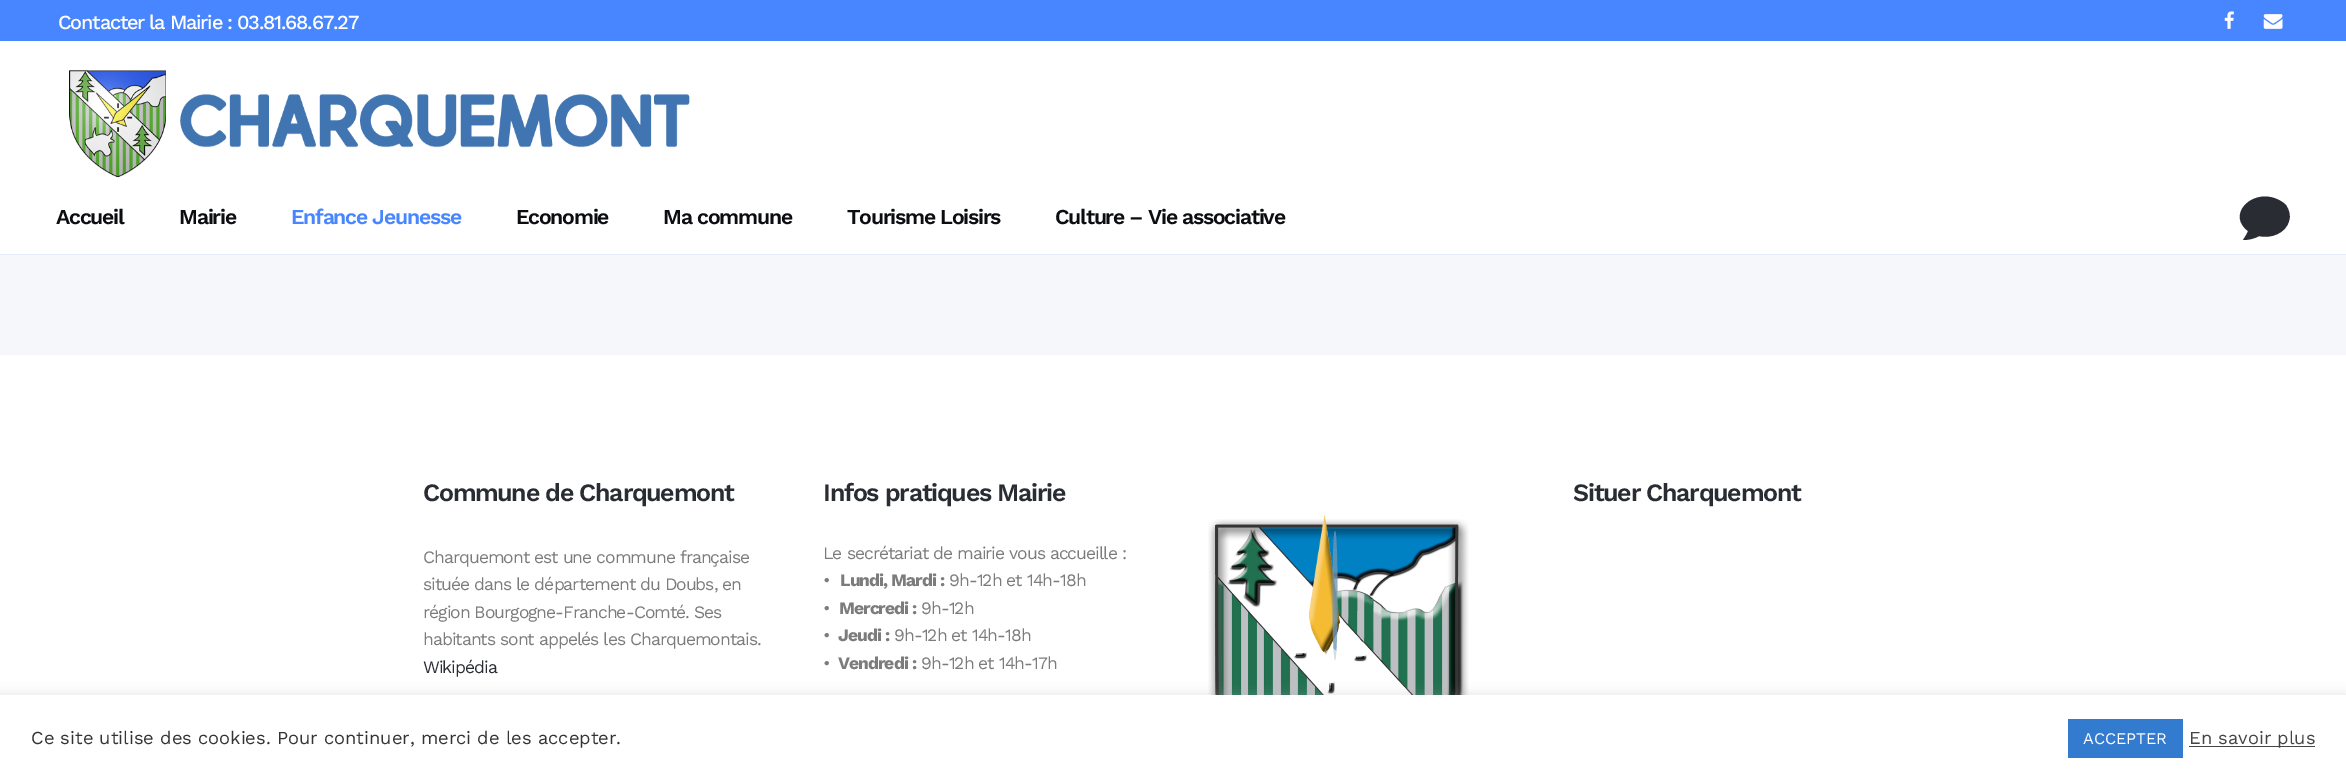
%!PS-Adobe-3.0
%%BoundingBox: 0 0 2346 781
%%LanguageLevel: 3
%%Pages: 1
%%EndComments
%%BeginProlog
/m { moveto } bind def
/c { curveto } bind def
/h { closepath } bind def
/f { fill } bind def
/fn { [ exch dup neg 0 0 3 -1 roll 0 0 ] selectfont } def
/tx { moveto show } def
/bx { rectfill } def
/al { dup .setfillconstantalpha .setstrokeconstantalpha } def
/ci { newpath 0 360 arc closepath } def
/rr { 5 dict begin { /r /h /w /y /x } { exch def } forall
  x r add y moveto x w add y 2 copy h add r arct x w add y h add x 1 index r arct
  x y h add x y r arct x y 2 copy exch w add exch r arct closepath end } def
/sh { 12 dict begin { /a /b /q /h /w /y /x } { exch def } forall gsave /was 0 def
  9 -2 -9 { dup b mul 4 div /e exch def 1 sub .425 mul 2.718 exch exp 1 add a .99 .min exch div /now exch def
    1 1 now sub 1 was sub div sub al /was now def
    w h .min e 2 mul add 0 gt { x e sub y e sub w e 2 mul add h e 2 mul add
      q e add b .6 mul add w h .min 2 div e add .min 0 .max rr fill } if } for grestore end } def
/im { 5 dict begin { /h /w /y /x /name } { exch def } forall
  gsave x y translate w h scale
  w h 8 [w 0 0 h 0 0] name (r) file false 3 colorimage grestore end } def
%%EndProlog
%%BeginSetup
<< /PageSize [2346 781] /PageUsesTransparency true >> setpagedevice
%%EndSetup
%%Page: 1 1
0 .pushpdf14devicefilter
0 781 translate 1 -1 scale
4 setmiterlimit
0.965 0.969 0.984 setrgbcolor
0 0 2346 781 bx
0.282 0.525 1 setrgbcolor
0 0 2346 41 bx
/WorkSans-Medium 20 fn
1 setgray
58 29 m -1.25 0 (Contacter la Mairie : 03.81.68.67.27) ashow
(image0.raw) 2224 11 10 18 im
(image1.raw) 2263 14 20 15 im
0 41 2346 213 bx
0.898 0.925 0.984 setrgbcolor
0 254 2346 1 bx
(image2.raw) 69 70 621 108 im
/WorkSans-SemiBold 21.25 fn
0.047 0.051 0.063 setrgbcolor
56 224 m -1.25 0 (Accueil) ashow
179 224 m -1.25 0 (Mairie) ashow
0.282 0.525 1 setrgbcolor
291 224 m -1.25 0 (Enfance Jeunesse) ashow
0.047 0.051 0.063 setrgbcolor
516 224 m -1.25 0 (Economie) ashow
663 224 m -1.25 0 (Ma commune) ashow
847 224 m -1.25 0 (Tourisme Loisirs) ashow
1055 224 m -1.25 0 (Culture – Vie associative) ashow
0.161 0.176 0.2 setrgbcolor
2248 231 m 2228 216 2248 193 2270 197 c 2276 198 2282 201 2286 205 c 2289 210 2291 215 2289 221 c 2286 233 2271 239 2259 236 c 2254 239 2248 240 2243 240 c 2245 237 2247 234 2248 231 c h f
1 setgray
0 355 2346 340 bx
/WorkSans-SemiBold 25 fn
0.161 0.176 0.2 setrgbcolor
423 501 m -1.25 0 (Commune de Charquemont) ashow
/WorkSans-Regular 17.5 fn
0.486 setgray
423 563 m -1 0 (Charquemont est une commune française) ashow
423 590 m -1 0 (située dans le département du Doubs, en) ashow
423 618 m -1 0 (région Bourgogne-Franche-Comté. Ses) ashow
423 645 m -1 0 (habitants sont appelés les Charquemontais.) ashow
0.161 0.176 0.2 setrgbcolor
423 673 m -1 0 (Wikipédia) ashow
/WorkSans-SemiBold 25 fn
823 501 m -1.25 0 (Infos pratiques Mairie) ashow
/WorkSans-Regular 17.5 fn
0.486 setgray
823 559 m -1 0 (Le secrétariat de mairie vous accueille :) ashow
823 586 m -1 0 (•) ashow
/WorkSans-Bold 17.5 fn
840 586 m -1 0 (Lundi, Mardi :) ashow
/WorkSans-Regular 17.5 fn
949 586 m -1 0 (9h-12h et 14h-18h) ashow
823 614 m -1 0 (•) ashow
/WorkSans-Bold 17.5 fn
839 614 m -1 0 (Mercredi :) ashow
/WorkSans-Regular 17.5 fn
921 614 m -1 0 (9h-12h) ashow
823 641 m -1 0 (•) ashow
/WorkSans-Bold 17.5 fn
838 641 m -1 0 (Jeudi :) ashow
/WorkSans-Regular 17.5 fn
894 641 m -1 0 (9h-12h et 14h-18h) ashow
823 669 m -1 0 (•) ashow
/WorkSans-Bold 17.5 fn
838 669 m -1 0 (Vendredi :) ashow
/WorkSans-Regular 17.5 fn
921 669 m -1 0 (9h-12h et 14h-17h) ashow
/WorkSans-SemiBold 25 fn
0.161 0.176 0.2 setrgbcolor
1573 501 m -1.25 0 (Situer Charquemont) ashow
(image3.raw) 1208 519 261 176 im
(image5.raw) 1324 530 16 125 im
(image4.raw) 1308 515 32 138 im
0.8 al
0.431 0.588 0.706 setrgbcolor
1335 531 m 1336.5 531 1337.5 560 1337.5 595.5 c 1337.5 631 1336.5 660 1335 660 c 1333.5 660 1332.5 631 1332.5 595.5 c 1332.5 560 1333.5 531 1335 531 c h f
0.6 al
1 setgray
1331.5 656.5 7.5 ci f
1 al
0.675 0.671 0.671 setrgbcolor
0 694 2346 86 0 6 0.3 sh
1 setgray
0 695 2346 86 bx
/WorkSans-Regular 18.3 fn
0.2 setgray
(Ce site utilise des cookies. Pour continuer, merci de les accepter.) 31 744 tx
0.2 0.482 0.808 setrgbcolor
2068 719 115 39 bx
/WorkSans-Regular 16.25 fn
1 setgray
(ACCEPTER) 2083 744 tx
0.267 setgray
2189 746 126 1 bx
/WorkSans-Regular 18.3 fn
(En savoir plus) 2189 744 tx
.poppdf14devicefilter showpage
%%EOF
